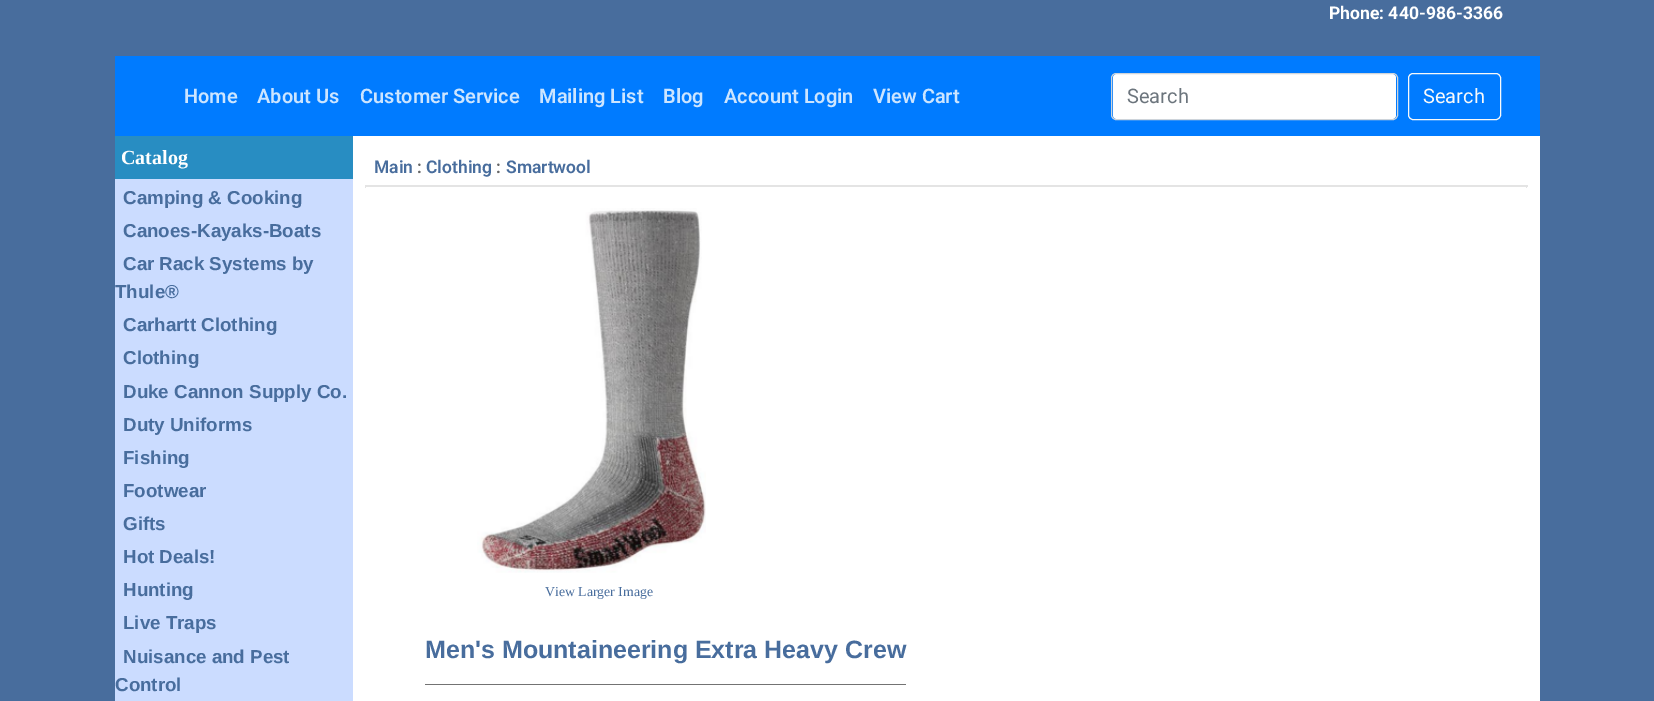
%!PS-Adobe-3.0
%%BoundingBox: 0 0 1654 701
%%LanguageLevel: 3
%%Pages: 1
%%EndComments
%%BeginProlog
/f { fill } bind def
/S { stroke } bind def
/fn { [ exch dup neg 0 0 3 -1 roll 0 0 ] selectfont } def
/tx { moveto show } def
/bx { rectfill } def
/rr { 5 dict begin { /r /h /w /y /x } { exch def } forall
  x r add y moveto x w add y 2 copy h add r arct x w add y h add x 1 index r arct
  x y h add x y r arct x y 2 copy exch w add exch r arct closepath end } def
/im { 5 dict begin { /h /w /y /x /name } { exch def } forall
  gsave x y translate w h scale
  w h 8 [w 0 0 h 0 0] name (r) file false 3 colorimage grestore end } def
%%EndProlog
%%BeginSetup
<< /PageSize [1654 701] >> setpagedevice
%%EndSetup
%%Page: 1 1
0 701 translate 1 -1 scale
4 setmiterlimit
0.282 0.427 0.616 setrgbcolor
0 0 1654 701 bx
/Roboto-Bold 17.5 fn
1 setgray
(Phone: 440-986-3366) 1329 19 tx
0 0.482 1 setrgbcolor
115 56 1425 80 bx
/Roboto-SemiBold 20 fn
0.8 0.898 1 setrgbcolor
(Home) 184 103 tx
(About Us) 257 103 tx
(Customer Service) 360 103 tx
(Mailing List) 539 103 tx
(Blog) 663 103 tx
(Account Login) 724 103 tx
(View Cart) 873 103 tx
1 setgray
1113 74 283 45 4 rr f
0.808 0.831 0.855 setrgbcolor
1111.5 73.5 286 46 4.5 rr S
/Roboto-Regular 20 fn
0.424 0.459 0.49 setrgbcolor
(Search) 1127 103 tx
0.973 0.976 0.98 setrgbcolor
1408.5 73.5 92 46 4.5 rr S
(Search) 1423 103 tx
0.796 0.863 1 setrgbcolor
115 179 238 522 bx
0.157 0.553 0.761 setrgbcolor
115 136 238 43 bx
/LiberationSerif-Bold 20 fn
1 setgray
(Catalog) 121 164 tx
/LiberationSans-Bold 18.75 fn
0.282 0.427 0.616 setrgbcolor
(Camping & Cooking) 123 204 tx
(Canoes-Kayaks-Boats) 123 237 tx
(Car Rack Systems by) 123 270 tx
(Thule®) 115 298 tx
(Carhartt Clothing) 123 331 tx
(Clothing) 123 364 tx
(Duke Cannon Supply Co.) 123 398 tx
(Duty Uniforms) 123 431 tx
(Fishing) 123 464 tx
(Footwear) 123 497 tx
(Gifts) 123 530 tx
(Hot Deals!) 123 563 tx
(Hunting) 123 596 tx
(Live Traps) 123 629 tx
(Nuisance and Pest) 123 663 tx
(Control) 115 691 tx
1 setgray
353 136 1187 565 bx
/Roboto-SemiBold 17.5 fn
0.282 0.427 0.616 setrgbcolor
(Main) 374 173 tx
0.4 setgray
(:) 417 173 tx
0.282 0.427 0.616 setrgbcolor
(Clothing) 426 173 tx
0.4 setgray
(:) 496 173 tx
0.282 0.427 0.616 setrgbcolor
(Smartwool) 506 173 tx
0.894 setgray
365 185 1163 1 bx
1526 185 1 3 bx
365 186 1163 1 bx
365 185 1 3 bx
(image0.raw) 477 208 229 365 im
/LiberationSerif-Regular 13.75 fn
0.282 0.427 0.616 setrgbcolor
(View Larger Image) 545 596 tx
/LiberationSans-Bold 25 fn
(Men's Mountaineering Extra Heavy Crew) 425 658 tx
0.451 setgray
425 684 481 1 bx
showpage
%%EOF
